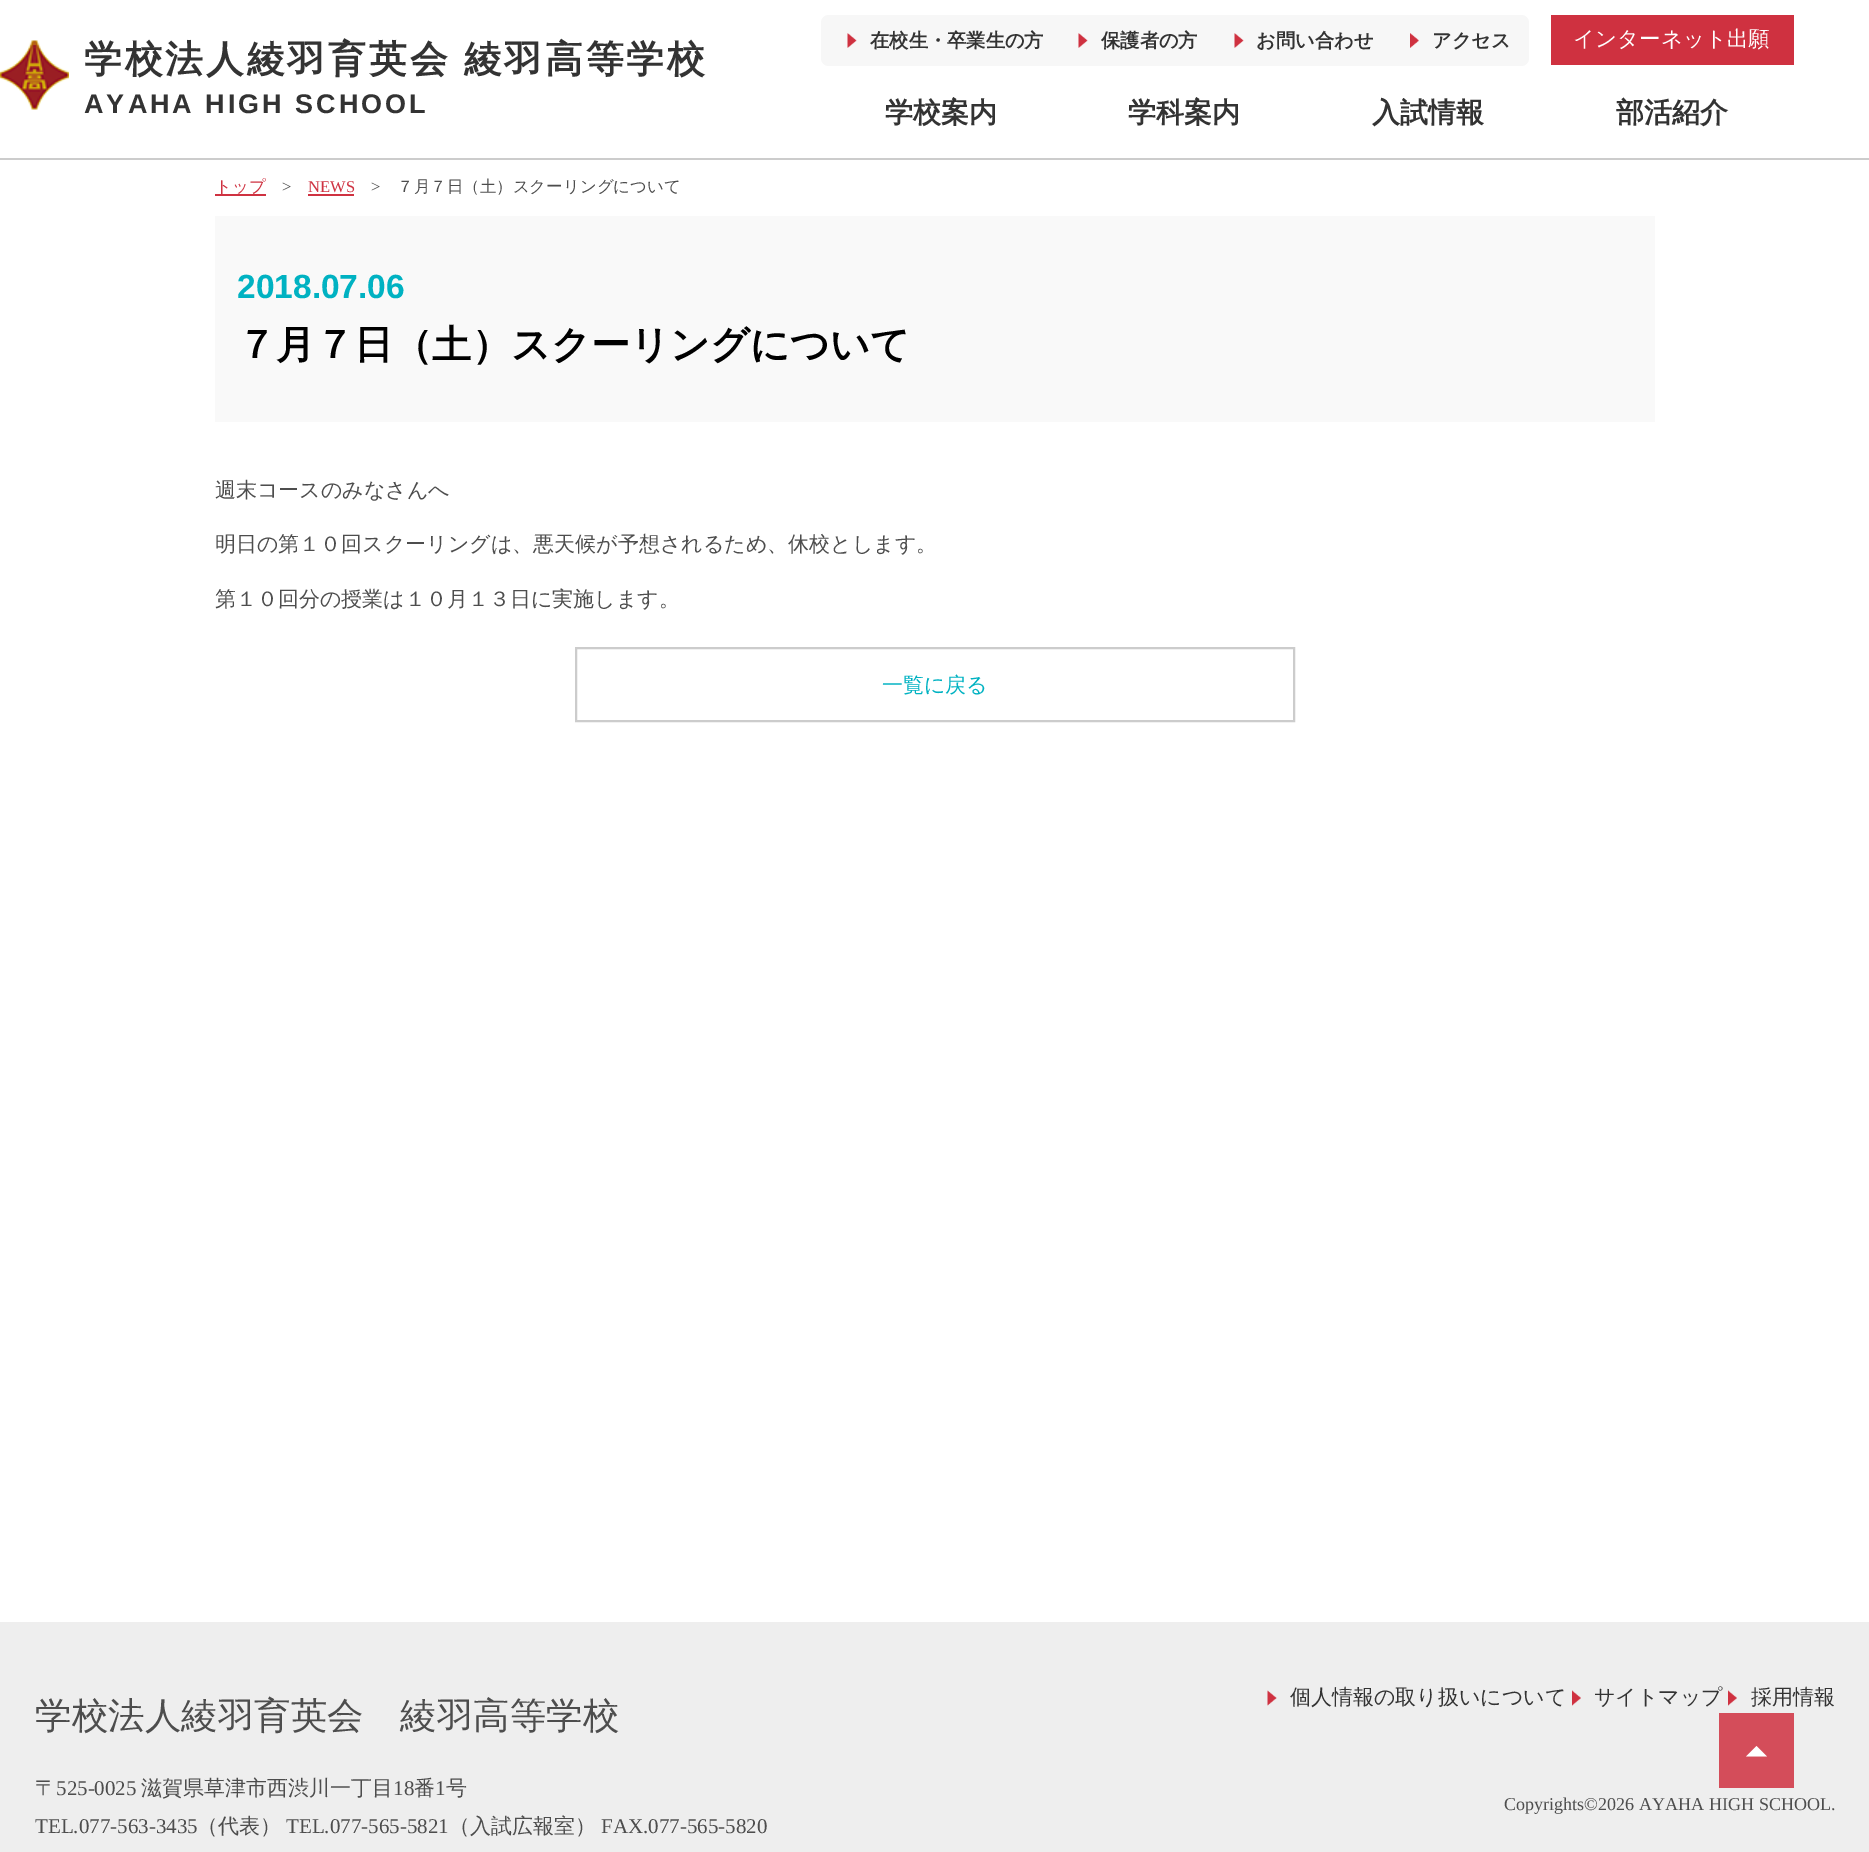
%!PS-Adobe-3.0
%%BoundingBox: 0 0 1869 1852
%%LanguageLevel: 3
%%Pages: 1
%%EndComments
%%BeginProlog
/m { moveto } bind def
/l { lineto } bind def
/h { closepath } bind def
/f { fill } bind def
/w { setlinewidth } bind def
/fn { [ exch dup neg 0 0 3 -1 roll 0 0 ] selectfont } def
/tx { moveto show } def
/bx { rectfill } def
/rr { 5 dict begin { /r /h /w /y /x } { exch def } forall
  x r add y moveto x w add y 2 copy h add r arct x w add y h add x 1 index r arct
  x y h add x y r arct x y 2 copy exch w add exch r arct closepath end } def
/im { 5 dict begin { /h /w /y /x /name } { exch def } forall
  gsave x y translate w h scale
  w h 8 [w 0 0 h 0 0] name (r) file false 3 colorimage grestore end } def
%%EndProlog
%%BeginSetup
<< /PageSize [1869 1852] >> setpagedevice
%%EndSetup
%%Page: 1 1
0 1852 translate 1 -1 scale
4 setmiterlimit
1 setgray
0 0 1869 1852 bx
0.8 setgray
0 158 1869 2 bx
(image0.raw) 0 40 69 70 im
/WenQuanYiZenHei-Bold 37.7 fn
0.2 setgray
84 72 m -1 0 32 3 0 (学校法人綾羽育英会 綾羽高等学校) awidthshow
/LiberationSans-Bold 27 fn
84 113 m 3 0 (AYAHA HIGH SCHOOL) ashow
0.969 setgray
821 15 708 51 8 rr f
(image1.raw) 847 33 10 15 im
/WenQuanYiZenHei-Bold 19.25 fn
0.2 setgray
(在校生・卒業生の方) 870 47 tx
(image1.raw) 1078 33 10 15 im
(保護者の方) 1101 47 tx
(image1.raw) 1234 33 10 15 im
(お問い合わせ) 1256 47 tx
(image2.raw) 1410 33 9 15 im
(アクセス) 1432 47 tx
0.812 0.192 0.251 setrgbcolor
1551 15 243 50 bx
/WenQuanYiZenHei-Medium 21.5 fn
1 setgray
(インターネット出願) 1573 46 tx
/WenQuanYiZenHei-Bold 28 fn
0.2 setgray
(学校案内) 885 122 tx
(学科案内) 1128 122 tx
(入試情報) 1372 122 tx
(部活紹介) 1616 122 tx
0.812 0.196 0.255 setrgbcolor
215 194 51 2 bx
/WenQuanYiZenHei-Medium 16.5 fn
(トップ) 215 192 tx
/LiberationSerif-Regular 16.5 fn
0.302 setgray
(>) 282 192 tx
0.812 0.196 0.255 setrgbcolor
(NEWS) 308 192 tx
308 194 46 2 bx
0.302 setgray
(>) 371 192 tx
/WenQuanYiZenHei-Medium 16.5 fn
(７月７日（土）スクーリングについて) 397 192 tx
0.976 setgray
215 216 1440 206 bx
/LiberationSans-Bold 33.5 fn
0 0.698 0.761 setrgbcolor
(2018.07.06) 237 298 tx
/WenQuanYiZenHei-Bold 39.1 fn
0 setgray
(７月７日（土）スクーリングについて) 237 358 tx
/WenQuanYiZenHei-Medium 21 fn
0.302 setgray
(週末コースのみなさんへ) 215 497 tx
(明日の第１０回スクーリングは、悪天候が予想されるため、休校とします。) 215 551 tx
(第１０回分の授業は１０月１３日に実施します。) 215 606 tx
0.8 setgray
2 w
576 648 718 73 rectstroke
0 0.698 0.761 setrgbcolor
(一覧に戻る) 882 692 tx
0.933 setgray
0 1622 1869 230 bx
/WenQuanYiZenHei-Medium 36.5 fn
0.302 setgray
(学校法人綾羽育英会　綾羽高等学校) 35 1728 tx
/WenQuanYiZenHei-Medium 21 fn
(〒) 35 1795 tx
/LiberationSerif-Regular 21 fn
(525-0025) 56 1795 tx
/WenQuanYiZenHei-Medium 21 fn
(滋賀県草津市西渋川一丁目) 141 1795 tx
/LiberationSerif-Regular 21 fn
(18) 393 1795 tx
/WenQuanYiZenHei-Medium 21 fn
(番) 414 1795 tx
/LiberationSerif-Regular 21 fn
(1) 435 1795 tx
/WenQuanYiZenHei-Medium 21 fn
(号) 446 1795 tx
/LiberationSerif-Regular 21 fn
(TEL.077-563-3435) 35 1833 tx
/WenQuanYiZenHei-Medium 21 fn
(（代表）) 197 1833 tx
/LiberationSerif-Regular 21 fn
(TEL.077-565-5821) 286 1833 tx
/WenQuanYiZenHei-Medium 21 fn
(（入試広報室）) 449 1833 tx
/LiberationSerif-Regular 21 fn
(FAX.077-565-5820) 601 1833 tx
(image3.raw) 1267 1690 10 16 im
/WenQuanYiZenHei-Medium 21 fn
0.2 setgray
(個人情報の取り扱いについて) 1290 1704 tx
(image4.raw) 1572 1690 9 16 im
(サイトマップ) 1594 1704 tx
(image4.raw) 1728 1690 9 16 im
(採用情報) 1751 1704 tx
/LiberationSerif-Regular 18.1 fn
0.302 setgray
(Copyrights©2026 AYAHA HIGH SCHOOL.) 1504 1810 tx
0.831 0.302 0.353 setrgbcolor
1719 1713 75 75 bx
1 setgray
1767 1756.5 m 1746 1756.5 l 1756.5 1746 l h f
showpage
%%EOF
